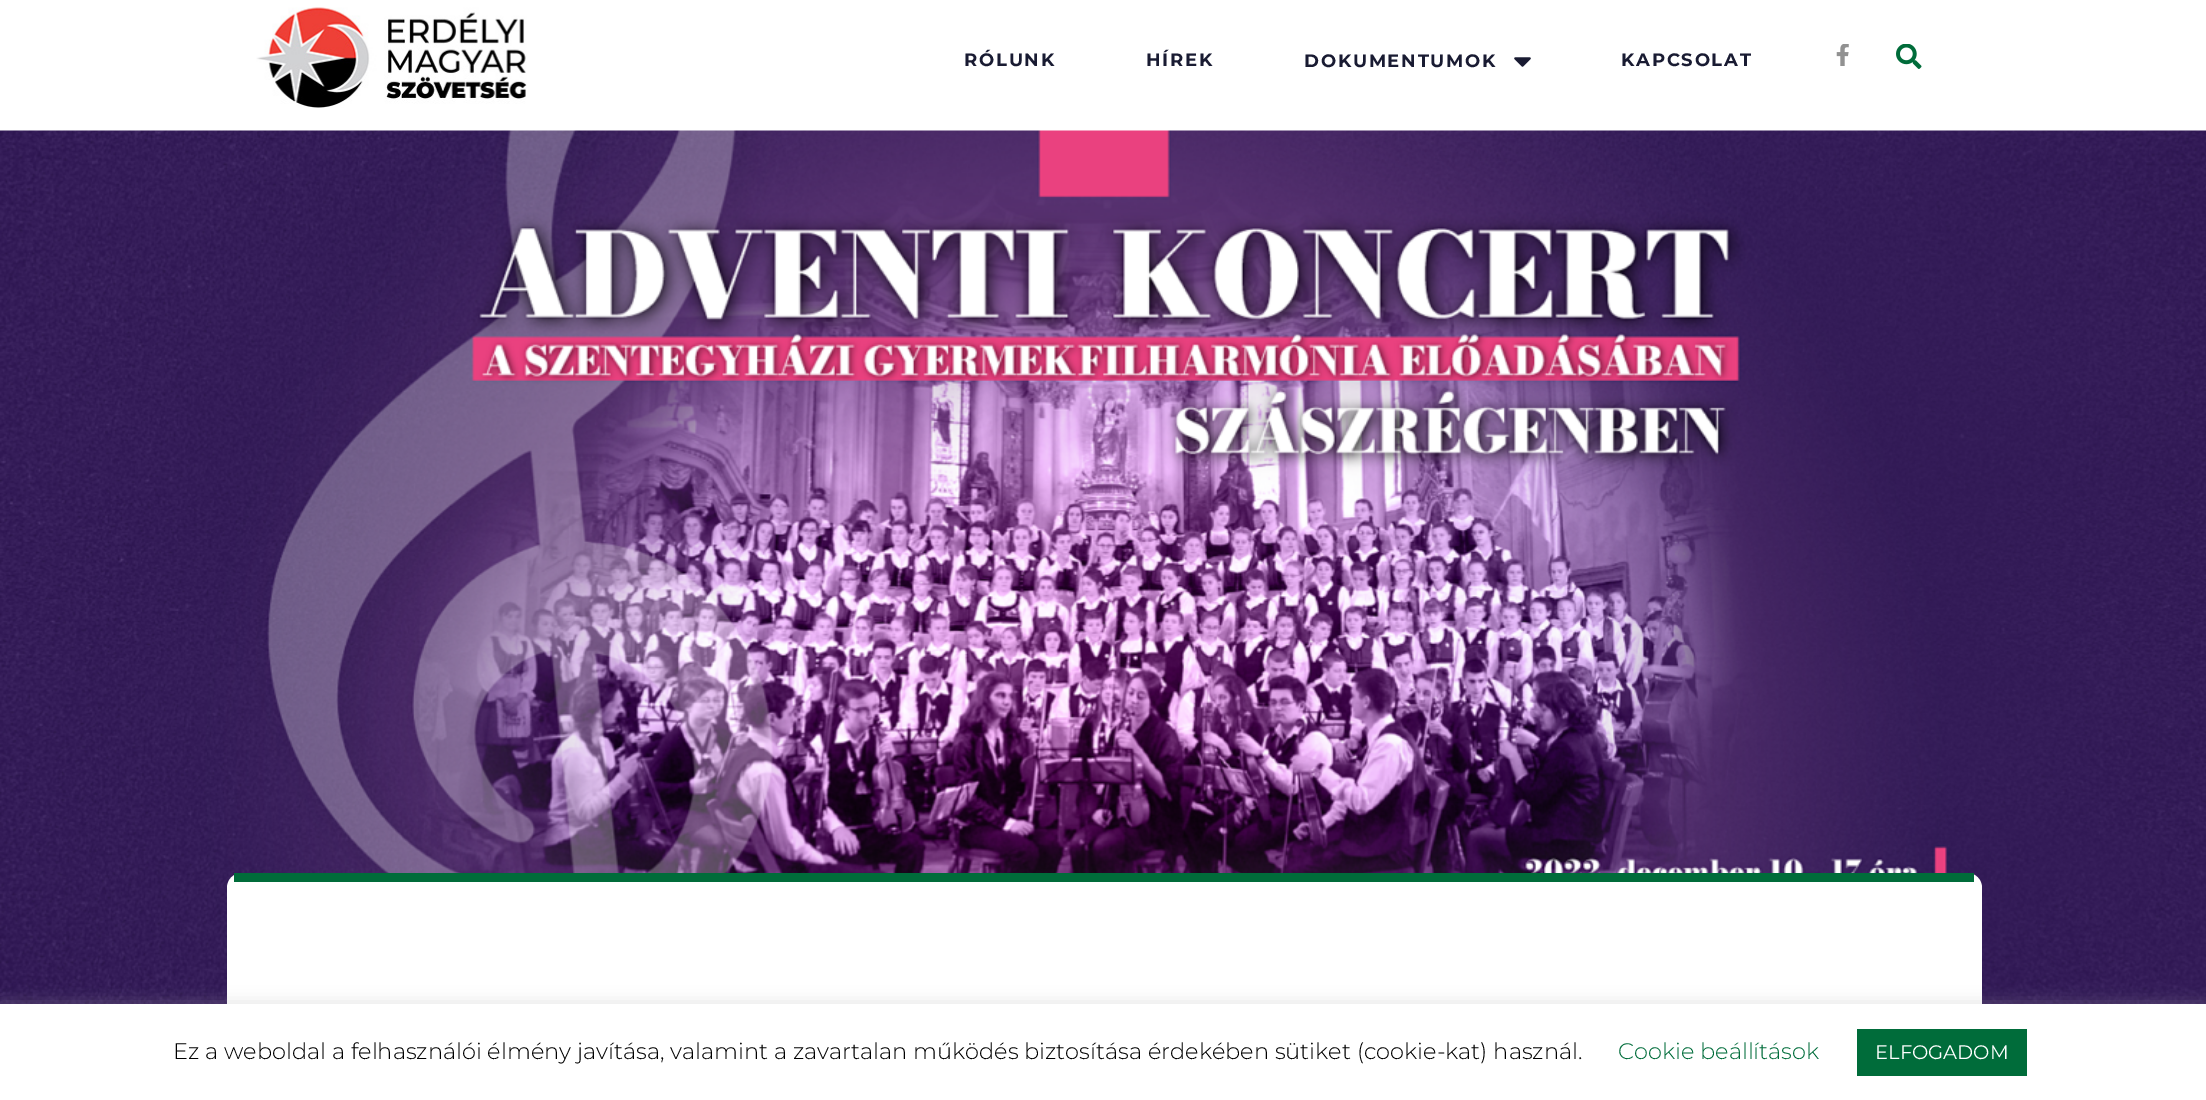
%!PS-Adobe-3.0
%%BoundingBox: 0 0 2206 1100
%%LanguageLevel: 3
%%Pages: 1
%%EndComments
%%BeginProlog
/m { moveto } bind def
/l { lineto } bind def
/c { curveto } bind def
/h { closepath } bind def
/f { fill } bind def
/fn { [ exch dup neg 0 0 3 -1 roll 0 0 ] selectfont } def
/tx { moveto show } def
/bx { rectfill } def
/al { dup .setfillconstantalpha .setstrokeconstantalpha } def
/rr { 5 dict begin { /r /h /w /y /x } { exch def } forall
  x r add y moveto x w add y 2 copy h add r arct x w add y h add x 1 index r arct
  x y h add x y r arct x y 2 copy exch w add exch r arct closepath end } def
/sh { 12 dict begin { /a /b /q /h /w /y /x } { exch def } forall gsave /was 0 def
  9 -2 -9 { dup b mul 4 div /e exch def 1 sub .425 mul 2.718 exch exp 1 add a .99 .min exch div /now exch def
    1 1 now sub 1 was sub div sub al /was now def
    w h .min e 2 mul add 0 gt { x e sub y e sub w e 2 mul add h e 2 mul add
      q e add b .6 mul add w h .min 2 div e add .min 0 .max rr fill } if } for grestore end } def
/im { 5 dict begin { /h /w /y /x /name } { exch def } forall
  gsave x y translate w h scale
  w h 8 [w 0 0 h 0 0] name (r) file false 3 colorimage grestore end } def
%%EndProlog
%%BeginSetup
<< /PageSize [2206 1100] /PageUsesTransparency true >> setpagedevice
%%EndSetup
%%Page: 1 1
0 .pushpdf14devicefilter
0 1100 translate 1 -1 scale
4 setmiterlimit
1 setgray
0 0 2206 1100 bx
(image0.raw) 256 7 271 101 im
/Montserrat-Bold 18 fn
0.098 0.106 0.196 setrgbcolor
964 66 m 1.75 0 (RÓLUNK) ashow
1146 66 m 1.75 0 (HÍREK) ashow
1304 67 m 1.75 0 (DOKUMENTUMOK) ashow
(image1.raw) 1514 57 17 10 im
1621 66 m 1.75 0 (KAPCSOLAT) ashow
(image2.raw) 1836 44 13 22 im
(image3.raw) 1896 44 26 25 im
(image4.raw) 0 130 2206 874 im
1 setgray
242 873 m 1967 873 l 1975.5 873 1982 879.5 1982 888 c 1982 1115 l 227 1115 l 227 888 l 227 879.5 233.5 873 242 873 c h f
0 0.424 0.227 setrgbcolor
234 873 1740 9 bx
0.675 0.671 0.671 setrgbcolor
0 1002 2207 98 0 7.5 0.3 sh
1 setgray
0 1004 2206 96 bx
/Montserrat-Light 22.5 fn
0 setgray
(Ez a weboldal a felhasználói élmény javítása, valamint a zavartalan működés biztosítása érdekében sütiket \(cookie-kat\) használ.) 173 1059 tx
0 0.424 0.227 setrgbcolor
(Cookie beállítások) 1618 1059 tx
1857 1029 170 47 bx
/Montserrat-Regular 19.5 fn
1 setgray
(ELFOGADOM) 1875 1059 tx
.poppdf14devicefilter showpage
%%EOF
